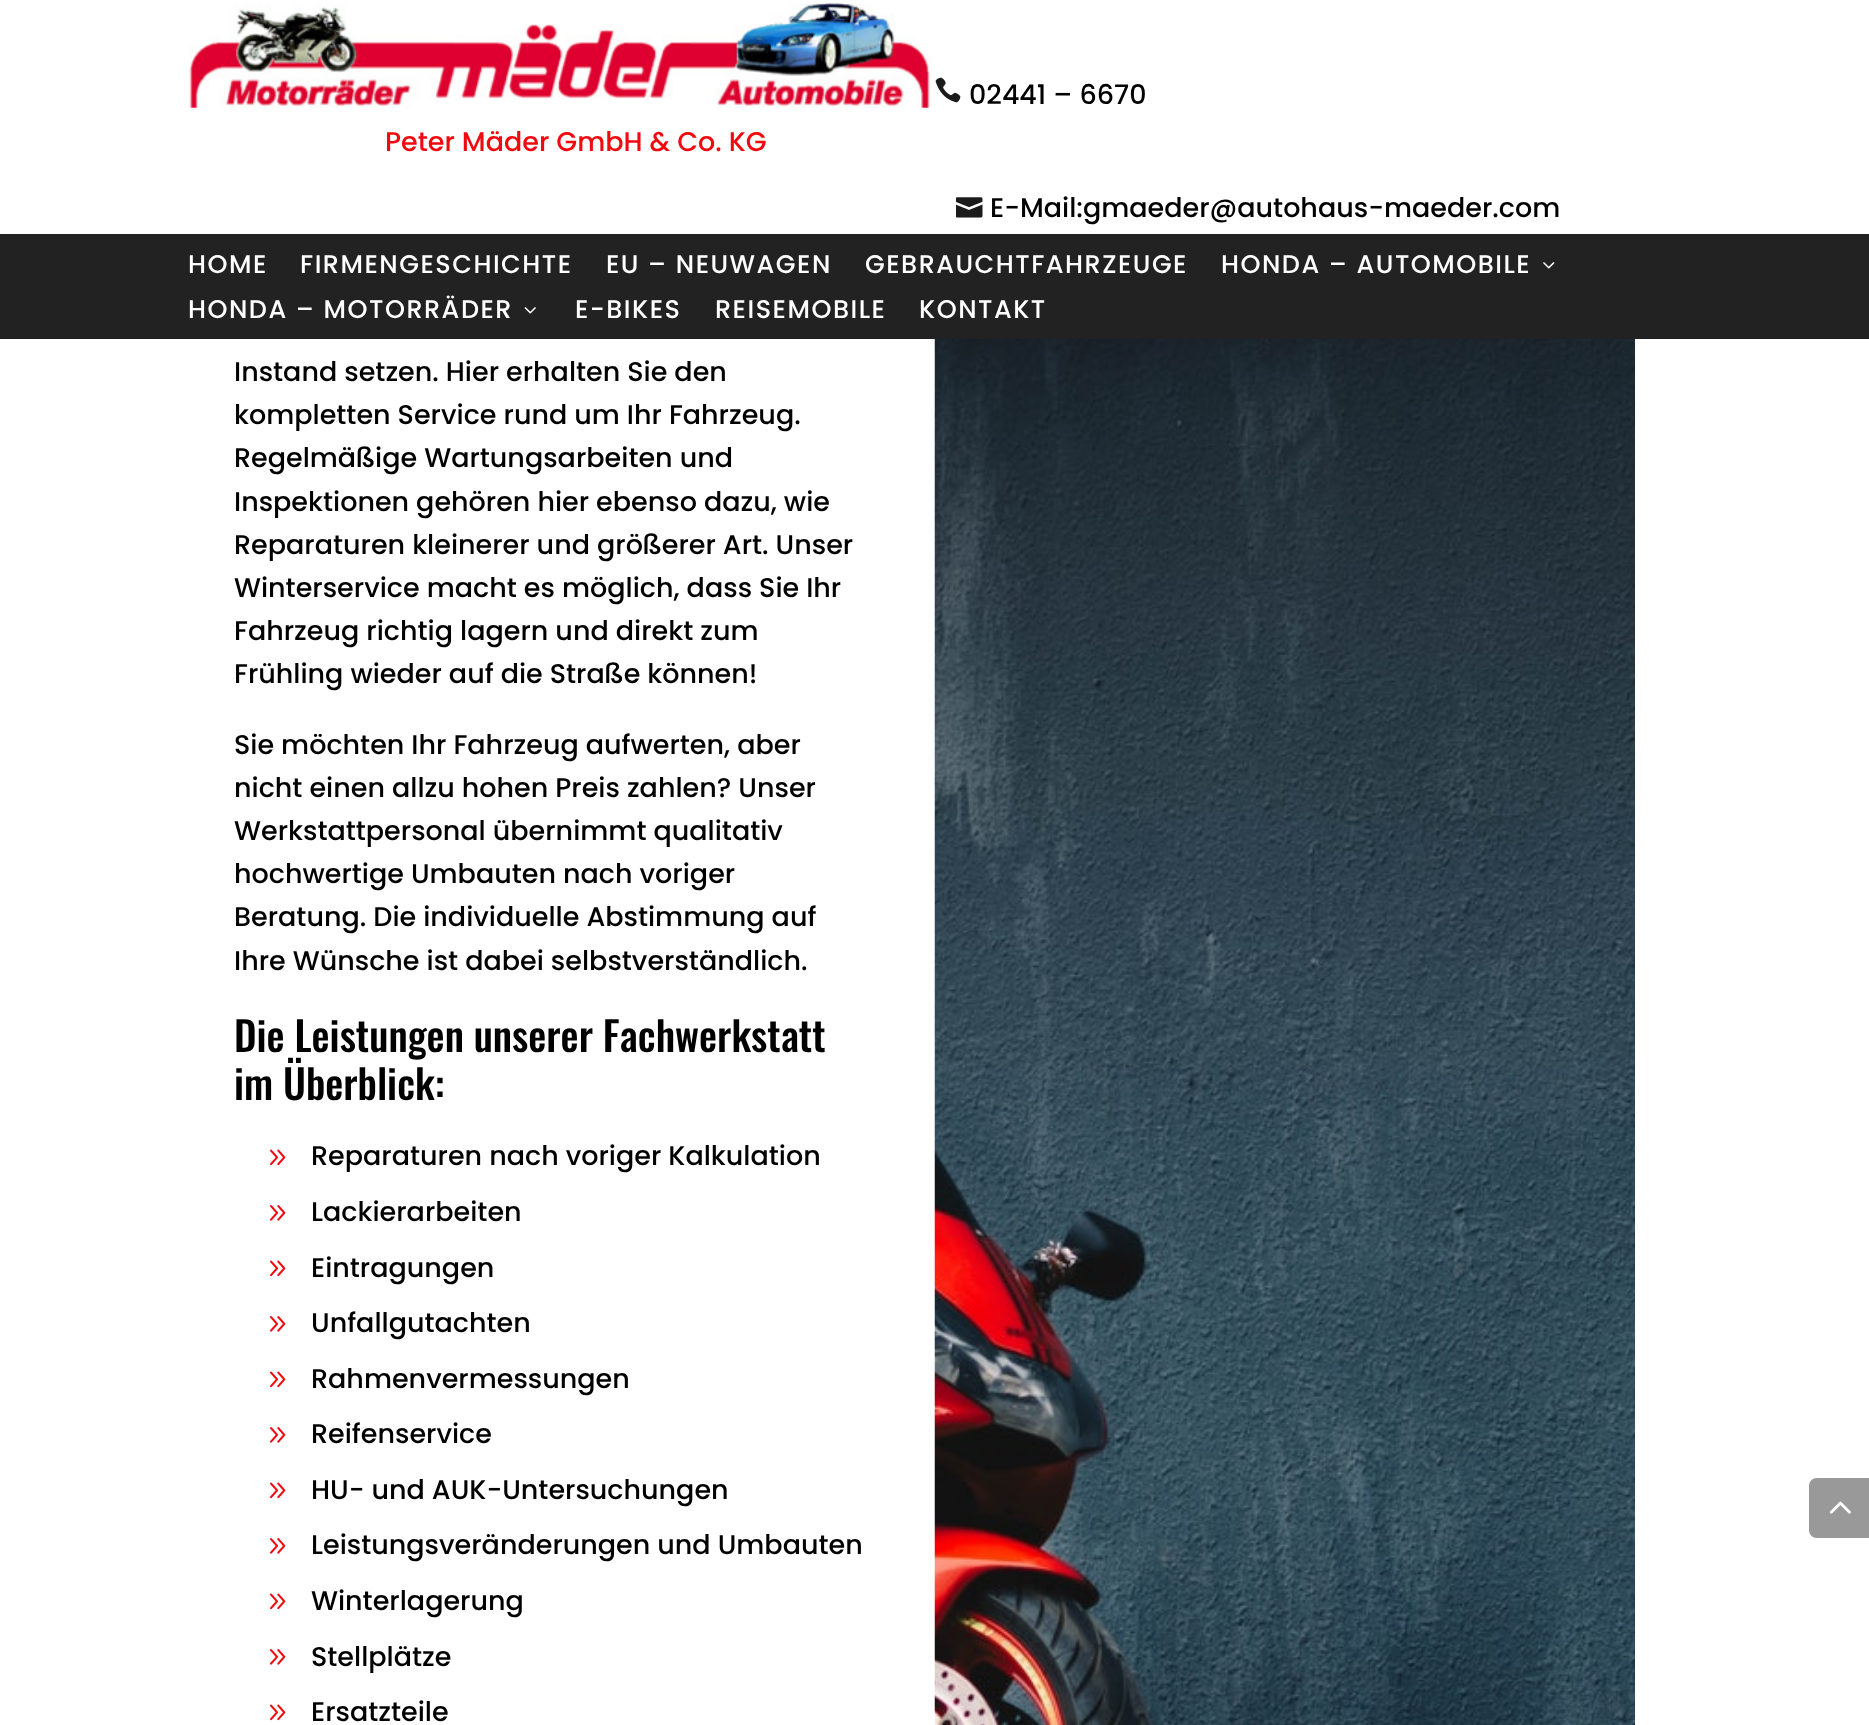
<svg xmlns="http://www.w3.org/2000/svg" width="1869" height="1725">
	<rect width="100%" height="100%" fill="#FFFFFF" />
	<image x="189" y="3" width="745" height="105" href="assets/img1.png" />
	<text x="385" y="151" font-family="Poppins" font-size="27" font-weight="500" fill="#F3080E">Peter Mäder GmbH &amp; Co. KG</text>
	<image x="935" y="77" width="26" height="26" href="assets/img2.png" />
	<text x="969" y="104" font-family="Poppins" font-size="27" font-weight="500" fill="#000000">02441 – 6670</text>
	<image x="956" y="197" width="27" height="21" href="assets/img3.png" />
	<text x="990" y="217" font-family="Poppins" font-size="27" font-weight="500" fill="#000000">E-Mail:gmaeder@autohaus-maeder.com</text>
	<rect x="0" y="234" width="1869" height="105" fill="#222222" />
	<g font-family="Poppins" font-size="25.5" font-weight="500" letter-spacing="1.5" fill="#FFFFFF">
		<text x="188" y="273">HOME</text>
		<text x="300" y="273">FIRMENGESCHICHTE</text>
		<text x="606" y="273">EU – NEUWAGEN</text>
		<text x="865" y="273">GEBRAUCHTFAHRZEUGE</text>
		<text x="1221" y="273">HONDA – AUTOMOBILE</text>
	</g>
	<image x="1543" y="262" width="12" height="7" href="assets/img4.png" />
	<text x="188" y="318" font-family="Poppins" font-size="25.5" font-weight="500" letter-spacing="1.5" fill="#FFFFFF">HONDA – MOTORRÄDER</text>
	<image x="524" y="307" width="12" height="7" href="assets/img5.png" />
	<g font-family="Poppins" font-size="25.5" font-weight="500" letter-spacing="1.5" fill="#FFFFFF">
		<text x="575" y="318">E-BIKES</text>
		<text x="715" y="318">REISEMOBILE</text>
		<text x="919" y="318">KONTAKT</text>
	</g>
	<g font-family="Poppins" font-size="27" font-weight="500" fill="#000000">
		<text x="234" y="381">Instand setzen. Hier erhalten Sie den</text>
		<text x="234" y="424">kompletten Service rund um Ihr Fahrzeug.</text>
		<text x="234" y="467">Regelmäßige Wartungsarbeiten und</text>
		<text x="234" y="511">Inspektionen gehören hier ebenso dazu, wie</text>
		<text x="234" y="554">Reparaturen kleinerer und größerer Art. Unser</text>
		<text x="234" y="597">Winterservice macht es möglich, dass Sie Ihr</text>
		<text x="234" y="640">Fahrzeug richtig lagern und direkt zum</text>
		<text x="234" y="683">Frühling wieder auf die Straße können!</text>
		<text x="234" y="754">Sie möchten Ihr Fahrzeug aufwerten, aber</text>
		<text x="234" y="797">nicht einen allzu hohen Preis zahlen? Unser</text>
		<text x="234" y="840">Werkstattpersonal übernimmt qualitativ</text>
		<text x="234" y="883">hochwertige Umbauten nach voriger</text>
		<text x="234" y="926">Beratung. Die individuelle Abstimmung auf</text>
		<text x="234" y="970">Ihre Wünsche ist dabei selbstverständlich.</text>
	</g>
	<g font-family="Oswald" font-size="40.5" font-weight="500" fill="#000000">
		<text x="234" y="1052">Die Leistungen unserer Fachwerkstatt</text>
		<text x="234" y="1100">im Überblick:</text>
	</g>
	<image x="270" y="1149" width="16" height="17" href="assets/img6.png" />
	<text x="311" y="1165" font-family="Poppins" font-size="27" font-weight="500" fill="#000000">Reparaturen nach voriger Kalkulation</text>
	<image x="270" y="1205" width="16" height="16" href="assets/img7.png" />
	<text x="311" y="1221" font-family="Poppins" font-size="27" font-weight="500" fill="#000000">Lackierarbeiten</text>
	<image x="270" y="1260" width="16" height="17" href="assets/img6.png" />
	<text x="311" y="1277" font-family="Poppins" font-size="27" font-weight="500" fill="#000000">Eintragungen</text>
	<image x="270" y="1316" width="16" height="16" href="assets/img7.png" />
	<text x="311" y="1332" font-family="Poppins" font-size="27" font-weight="500" fill="#000000">Unfallgutachten</text>
	<image x="270" y="1371" width="16" height="17" href="assets/img6.png" />
	<text x="311" y="1388" font-family="Poppins" font-size="27" font-weight="500" fill="#000000">Rahmenvermessungen</text>
	<image x="270" y="1427" width="16" height="16" href="assets/img7.png" />
	<text x="311" y="1443" font-family="Poppins" font-size="27" font-weight="500" fill="#000000">Reifenservice</text>
	<image x="270" y="1482" width="16" height="17" href="assets/img6.png" />
	<text x="311" y="1499" font-family="Poppins" font-size="27" font-weight="500" fill="#000000">HU- und AUK-Untersuchungen</text>
	<image x="270" y="1538" width="16" height="16" href="assets/img7.png" />
	<text x="311" y="1554" font-family="Poppins" font-size="27" font-weight="500" fill="#000000">Leistungsveränderungen und Umbauten</text>
	<image x="270" y="1593" width="16" height="17" href="assets/img6.png" />
	<text x="311" y="1610" font-family="Poppins" font-size="27" font-weight="500" fill="#000000">Winterlagerung</text>
	<image x="270" y="1649" width="16" height="16" href="assets/img7.png" />
	<text x="311" y="1666" font-family="Poppins" font-size="27" font-weight="500" fill="#000000">Stellplätze</text>
	<image x="270" y="1704" width="16" height="17" href="assets/img6.png" />
	<text x="311" y="1721" font-family="Poppins" font-size="27" font-weight="500" fill="#000000">Ersatzteile</text>
	<image x="934" y="339" width="701" height="1386" href="assets/img8.png" />
	<path d="M1817 1478H1869V1538H1817C1812.5 1538 1809 1534.5 1809 1530V1486C1809 1481.5 1812.5 1478 1817 1478Z" fill="#999999" />
	<image x="1829" y="1501" width="22" height="13" href="assets/img9.png" />
</svg>
